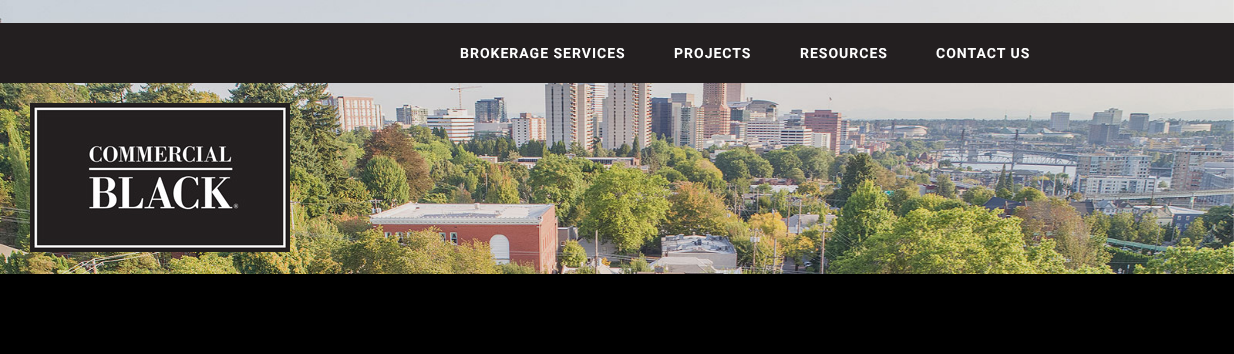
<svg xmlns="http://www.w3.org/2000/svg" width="1234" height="354">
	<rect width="100%" height="100%" fill="#FFFFFF" />
	<image x="0" y="0" width="1234" height="274" href="assets/img1.png" />
	<rect x="0" y="23" width="1234" height="60" fill="#231F20" />
	<g font-family="Roboto" font-size="14" font-weight="700" letter-spacing="1" fill="#FFFFFF">
		<text x="460" y="58">BROKERAGE SERVICES</text>
		<text x="674" y="58">PROJECTS</text>
		<text x="800" y="58">RESOURCES</text>
		<text x="936" y="58">CONTACT US</text>
	</g>
	<image x="30" y="103" width="260" height="149" href="assets/img2.png" />
	<rect x="0" y="274" width="1234" height="80" fill="#000000" />
</svg>
